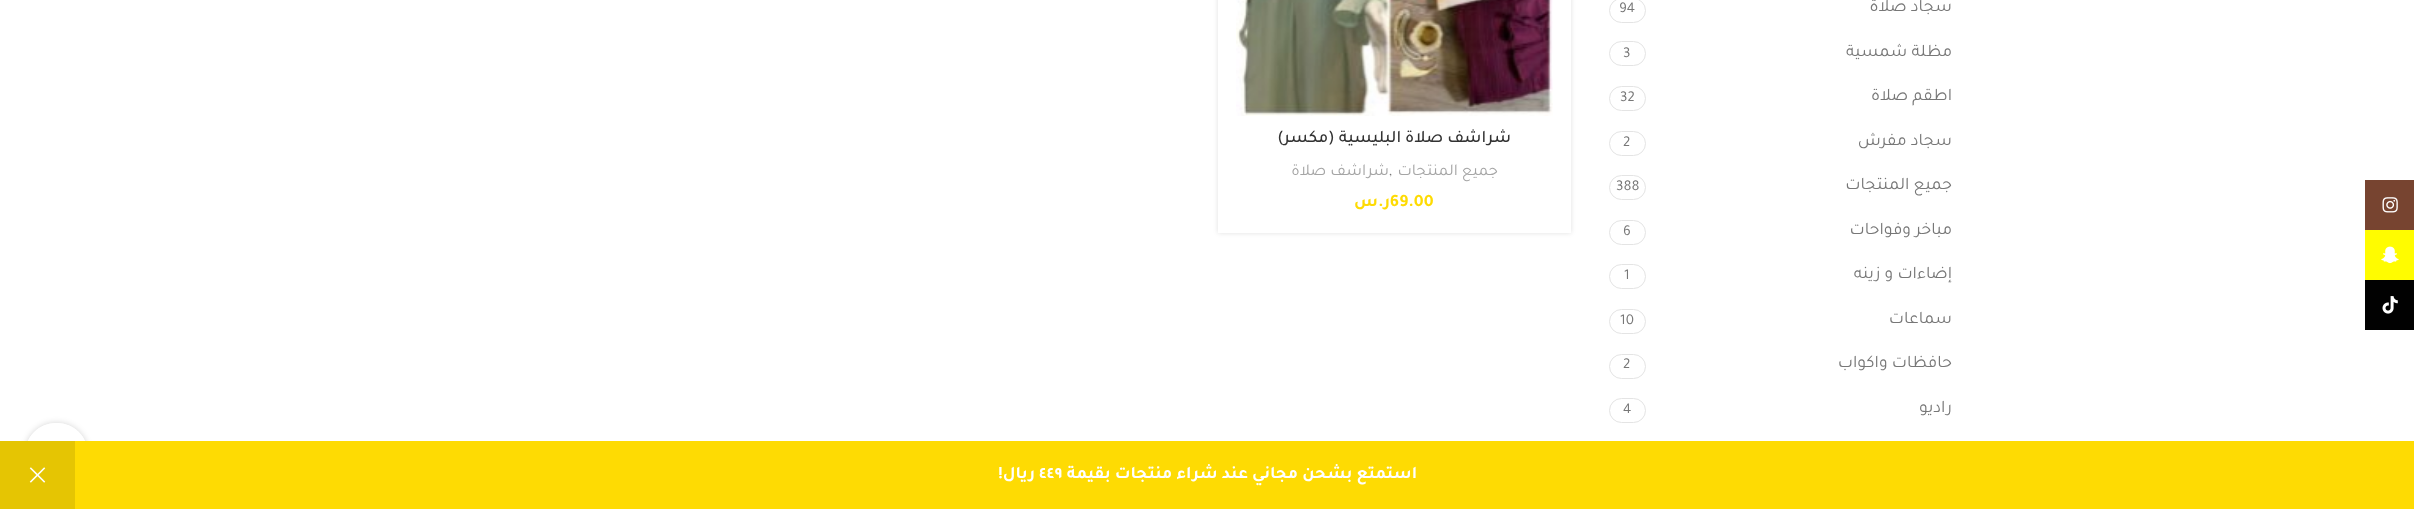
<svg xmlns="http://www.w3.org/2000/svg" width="2414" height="509">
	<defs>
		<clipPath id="clip1"><path d="M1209 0H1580V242H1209ZM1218-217H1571V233H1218Z" clip-rule="evenodd" /></clipPath>
		<clipPath id="clip2"><path d="M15 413H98V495H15ZM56 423H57C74 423 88 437 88 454C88 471 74 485 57 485H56C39 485 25 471 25 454C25 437 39 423 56 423Z" clip-rule="evenodd" /></clipPath>
	</defs>
	<rect width="100%" height="100%" fill="#FFFFFF" />
	<rect x="2365" y="180" width="49" height="50" fill="#774430" />
	<image x="2382" y="197" width="16" height="16" href="assets/img1.png" />
	<rect x="2365" y="230" width="49" height="50" fill="#FFFC00" />
	<image x="2381" y="246" width="18" height="18" href="assets/img2.png" />
	<rect x="2365" y="280" width="49" height="50" fill="#010101" />
	<image x="2382" y="296" width="16" height="18" href="assets/img3.png" />
	<text x="1952" y="11" font-family="Tajawal" font-size="17.5" direction="rtl" fill="#777777">سجاد صلاة</text>
	<rect x="1609.5" y="-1.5" width="36" height="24" rx="12" fill="none" stroke="#E4E4E4" />
	<text x="1619" y="12" font-family="Tajawal" font-size="15" fill="#777777">94</text>
	<text x="1952" y="56" font-family="Tajawal" font-size="17.5" direction="rtl" fill="#777777">مظلة شمسية</text>
	<rect x="1609.5" y="41.5" width="36" height="24" rx="12" fill="none" stroke="#E4E4E4" />
	<text x="1623" y="57" font-family="Tajawal" font-size="15" fill="#777777">3</text>
	<text x="1952" y="100" font-family="Tajawal" font-size="17.5" direction="rtl" fill="#777777">اطقم صلاة</text>
	<rect x="1609.5" y="86.5" width="36" height="24" rx="12" fill="none" stroke="#E4E4E4" />
	<text x="1620" y="101" font-family="Tajawal" font-size="15" fill="#777777">32</text>
	<text x="1952" y="145" font-family="Tajawal" font-size="17.5" direction="rtl" fill="#777777">سجاد مفرش</text>
	<rect x="1609.5" y="131.5" width="36" height="24" rx="12" fill="none" stroke="#E4E4E4" />
	<text x="1623" y="146" font-family="Tajawal" font-size="15" fill="#777777">2</text>
	<text x="1952" y="189" font-family="Tajawal" font-size="17.5" direction="rtl" fill="#777777">جميع المنتجات</text>
	<rect x="1609.5" y="175.5" width="36" height="24" rx="12" fill="none" stroke="#E4E4E4" />
	<text x="1616" y="190" font-family="Tajawal" font-size="15" fill="#777777">388</text>
	<text x="1952" y="234" font-family="Tajawal" font-size="17.5" direction="rtl" fill="#777777">مباخر وفواحات</text>
	<rect x="1609.5" y="220.5" width="36" height="24" rx="12" fill="none" stroke="#E4E4E4" />
	<text x="1623" y="235" font-family="Tajawal" font-size="15" fill="#777777">6</text>
	<text x="1952" y="278" font-family="Tajawal" font-size="17.5" direction="rtl" fill="#777777">إضاءات و زينه</text>
	<rect x="1609.5" y="264.5" width="36" height="24" rx="12" fill="none" stroke="#E4E4E4" />
	<text x="1624" y="279" font-family="Tajawal" font-size="15" fill="#777777">1</text>
	<text x="1952" y="323" font-family="Tajawal" font-size="17.5" direction="rtl" fill="#777777">سماعات</text>
	<rect x="1609.5" y="309.5" width="36" height="24" rx="12" fill="none" stroke="#E4E4E4" />
	<text x="1620" y="324" font-family="Tajawal" font-size="15" fill="#777777">10</text>
	<text x="1952" y="367" font-family="Tajawal" font-size="17.5" direction="rtl" fill="#777777">حافظات واكواب</text>
	<rect x="1609.5" y="354.5" width="36" height="24" rx="12" fill="none" stroke="#E4E4E4" />
	<text x="1623" y="368" font-family="Tajawal" font-size="15" fill="#777777">2</text>
	<text x="1952" y="412" font-family="Tajawal" font-size="17.5" direction="rtl" fill="#777777">راديو</text>
	<rect x="1609.5" y="398.5" width="36" height="24" rx="12" fill="none" stroke="#E4E4E4" />
	<text x="1623" y="413" font-family="Tajawal" font-size="15" fill="#777777">4</text>
	<g clip-path="url(#clip1)">
		<rect x="1218" y="-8" width="353" height="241" fill="#000000" fill-opacity="0.12" filter="blur(2.5px)" />
	</g>
	<image x="1236" y="0" width="317" height="116" href="assets/img4.png" />
	<text x="1511" y="142" font-family="Tajawal" font-size="17.5" font-weight="500" direction="rtl" fill="#333333">شراشف صلاة البليسية (مكسر)</text>
	<text x="1498" y="175" font-family="Tajawal" font-size="16.5" direction="rtl" fill="#A5A5A5">جميع المنتجات</text>
	<text x="1389" y="175" font-family="Tajawal" font-size="16.5" fill="#777777">,</text>
	<text x="1389" y="175" font-family="Tajawal" font-size="16.5" direction="rtl" fill="#A5A5A5">شراشف صلاة</text>
	<text x="1390" y="206" font-family="Tajawal" font-size="17.5" font-weight="700" fill="#FEDB03">69.00</text>
	<text x="1390" y="206" font-family="Tajawal" font-size="17.5" font-weight="700" direction="rtl" fill="#FEDB03">ر.س</text>
	<g clip-path="url(#clip2)">
		<rect x="25" y="423" width="63" height="62" rx="31" fill="#000000" fill-opacity="0.17" filter="blur(3px)" />
	</g>
	<rect x="25" y="423" width="63" height="62" rx="31" fill="#FFFFFF" fill-opacity="0.9" />
	<rect x="75" y="441" width="2339" height="68" fill="#FEDB03" />
	<text x="1417" y="478" font-family="Tajawal" font-size="17.5" font-weight="700" direction="rtl" fill="#FFFFFF">استمتع بشحن مجاني عند شراء منتجات بقيمة</text>
	<text x="1039" y="478" font-family="Tajawal" font-size="17.5" font-weight="700" fill="#FFFFFF">٤٤٩</text>
	<text x="1035" y="478" font-family="Tajawal" font-size="17.5" font-weight="700" direction="rtl" fill="#FFFFFF">ريال!</text>
	<rect x="0" y="441" width="75" height="68" fill="#E5C503" />
	<image x="29" y="467" width="17" height="16" href="assets/img5.png" />
</svg>
